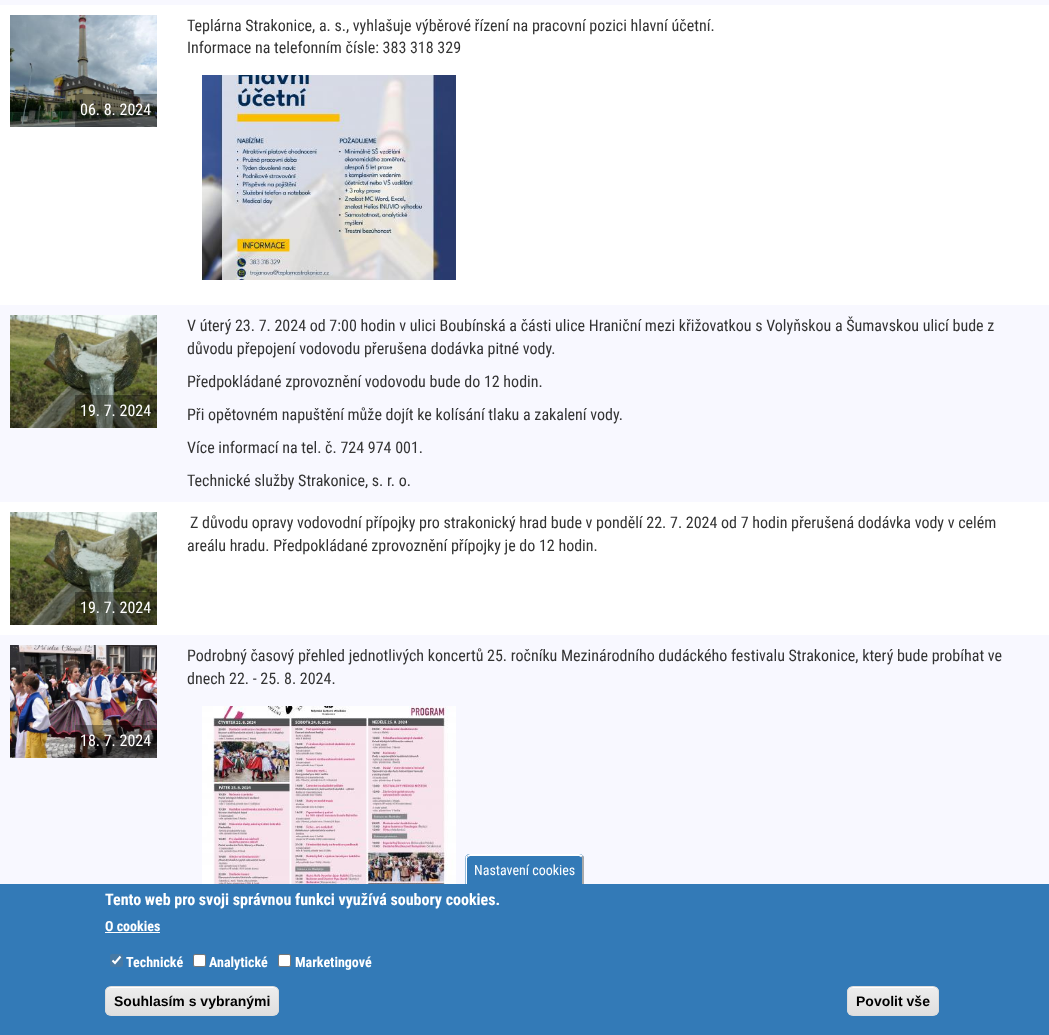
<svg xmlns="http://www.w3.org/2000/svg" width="1049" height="1035">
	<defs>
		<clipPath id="clip1"><rect x="105" y="986" width="174" height="30" rx="6" /></clipPath>
		<linearGradient id="g1" gradientUnits="userSpaceOnUse" x1="192" y1="987" x2="192" y2="1015"><stop offset="0.05" stop-color="#EDEDED" /><stop offset="1" stop-color="#DFDFDF" /></linearGradient>
		<clipPath id="clip2"><rect x="847" y="986" width="92" height="30" rx="6" /></clipPath>
		<linearGradient id="g2" gradientUnits="userSpaceOnUse" x1="893" y1="987" x2="893" y2="1015"><stop offset="0.05" stop-color="#EDEDED" /><stop offset="1" stop-color="#DFDFDF" /></linearGradient>
	</defs>
	<rect width="100%" height="100%" fill="#FFFFFF" />
	<rect x="0" y="0" width="1049" height="5" fill="#F8F8FF" />
	<g font-family="Roboto Condensed" font-size="16" fill="#333333">
		<text x="187" y="31">Teplárna Strakonice, a. s., vyhlašuje výběrové řízení na pracovní pozici hlavní účetní.</text>
		<text x="187" y="53">Informace na telefonním čísle: 383 318 329</text>
	</g>
	<image x="202" y="75" width="254" height="205" href="assets/img1.png" />
	<image x="10" y="15" width="147" height="112" href="assets/img2.png" />
	<rect x="75" y="94" width="82" height="33" fill="#000000" fill-opacity="0.33" />
	<text x="80" y="115" font-family="Roboto Condensed" font-size="16" fill="#FFFFFF">06. 8. 2024</text>
	<rect x="0" y="305" width="1049" height="197" fill="#F8F8FF" />
	<image x="10" y="315" width="147" height="113" href="assets/img3.png" />
	<rect x="75" y="395" width="82" height="33" fill="#000000" fill-opacity="0.33" />
	<text x="80" y="416" font-family="Roboto Condensed" font-size="16" fill="#FFFFFF">19. 7. 2024</text>
	<g font-family="Roboto Condensed" font-size="16" fill="#333333">
		<text x="187" y="331">V úterý 23. 7. 2024 od 7:00 hodin v ulici Boubínská a části ulice Hraniční mezi křižovatkou s Volyňskou a Šumavskou ulicí bude z</text>
		<text x="187" y="354">důvodu přepojení vodovodu přerušena dodávka pitné vody.</text>
		<text x="187" y="387">Předpokládané zprovoznění vodovodu bude do 12 hodin.</text>
		<text x="187" y="420">Při opětovném napuštění může dojít ke kolísání tlaku a zakalení vody.</text>
		<text x="187" y="453">Více informací na tel. č. 724 974 001.</text>
		<text x="187" y="486">Technické služby Strakonice, s. r. o.</text>
		<text x="190" y="528">Z důvodu opravy vodovodní přípojky pro strakonický hrad bude v pondělí 22. 7. 2024 od 7 hodin přerušená dodávka vody v celém</text>
		<text x="187" y="551">areálu hradu. Předpokládané zprovoznění přípojky je do 12 hodin.</text>
	</g>
	<image x="10" y="512" width="147" height="113" href="assets/img4.png" />
	<rect x="75" y="592" width="82" height="33" fill="#000000" fill-opacity="0.33" />
	<text x="80" y="613" font-family="Roboto Condensed" font-size="16" fill="#FFFFFF">19. 7. 2024</text>
	<rect x="0" y="635" width="1049" height="249" fill="#F8F8FF" />
	<g font-family="Roboto Condensed" font-size="16" fill="#333333">
		<text x="187" y="661">Podrobný časový přehled jednotlivých koncertů 25. ročníku Mezinárodního dudáckého festivalu Strakonice, který bude probíhat ve</text>
		<text x="187" y="684">dnech 22. - 25. 8. 2024.</text>
	</g>
	<image x="202" y="706" width="254" height="178" href="assets/img5.png" />
	<image x="10" y="645" width="147" height="113" href="assets/img6.png" />
	<rect x="75" y="725" width="82" height="33" fill="#000000" fill-opacity="0.33" />
	<text x="80" y="746" font-family="Roboto Condensed" font-size="16" fill="#FFFFFF">18. 7. 2024</text>
	<rect x="0" y="884" width="1049" height="151" fill="#337AB7" />
	<path d="M470 854H579C582 854 584 856 584 859V884H465V859C465 856 467 854 470 854Z" fill="#337AB7" />
	<path d="M470 854L467 855L468 857L470 856H579L581 857L583 856C582 855 581 854 579 854Z" fill="#FFFFFF" />
	<path d="M582 884H584V859C584 857.5 583.5 856.5 583 855.5L581.5 857C582 857.5 582 858 582 859Z" fill="#AAAAAA" />
	<path d="M465.5 884V857L466.5 855.5L468 857C467.5 857.5 467 858 467 859V884Z" fill="#FFFFFF" />
	<text x="474" y="875" font-family="Roboto Condensed" font-size="14" fill="#FFFFFF">Nastavení cookies</text>
	<text x="105" y="905" font-family="Roboto Condensed" font-size="16" font-weight="700" fill="#FFFFFF">Tento web pro svoji správnou funkci využívá soubory cookies.</text>
	<text x="105" y="931" font-family="Roboto Condensed" font-size="14" font-weight="700" fill="#FFFFFF">O cookies</text>
	<rect x="105" y="932" width="55" height="1" fill="#FFFFFF" />
	<rect x="110" y="954" width="13" height="13" rx="2" fill="#4779A4" />
	<path d="M112.5 960.5L115 963L120.5 956.5" fill="none" stroke="#FFFFFF" stroke-width="2.1" />
	<text x="126" y="967" font-family="Roboto Condensed" font-size="14" font-weight="700" fill="#FFFFFF">Technické</text>
	<rect x="193.5" y="954.5" width="12" height="12" rx="1.5" fill="#FFFFFF" stroke="#767676" />
	<text x="209" y="967" font-family="Roboto Condensed" font-size="14" font-weight="700" fill="#FFFFFF">Analytické</text>
	<rect x="278.5" y="954.5" width="12" height="12" rx="1.5" fill="#FFFFFF" stroke="#767676" />
	<text x="295" y="967" font-family="Roboto Condensed" font-size="14" font-weight="700" fill="#FFFFFF">Marketingové</text>
	<g clip-path="url(#clip1)">
		<rect x="105" y="987" width="174" height="28" fill="url(#g1)" />
	</g>
	<path d="M111 988H273C276 988 278 990 278 993C278 990 276 987 273 987H110C107 988 106 990 106 993C106 990 108 988 111 988Z" fill="#FFFFFF" />
	<rect x="105.5" y="986.5" width="173" height="29" rx="5.5" fill="none" stroke="#DCDCDC" />
	<text x="114" y="1006" font-family="Liberation Sans" font-size="14" font-weight="700" fill="#000000">Souhlasím s vybranými</text>
	<g clip-path="url(#clip2)">
		<rect x="847" y="987" width="92" height="28" fill="url(#g2)" />
	</g>
	<path d="M853 988H933C936 988 938 990 938 993C938 984 925 987 920 987H866C861 987 848 984 848 993C848 990 850 988 853 988Z" fill="#FFFFFF" />
	<rect x="847.5" y="986.5" width="91" height="29" rx="5.5" fill="none" stroke="#DCDCDC" />
	<text x="856" y="1006" font-family="Liberation Sans" font-size="14" font-weight="700" fill="#000000">Povolit vše</text>
</svg>
